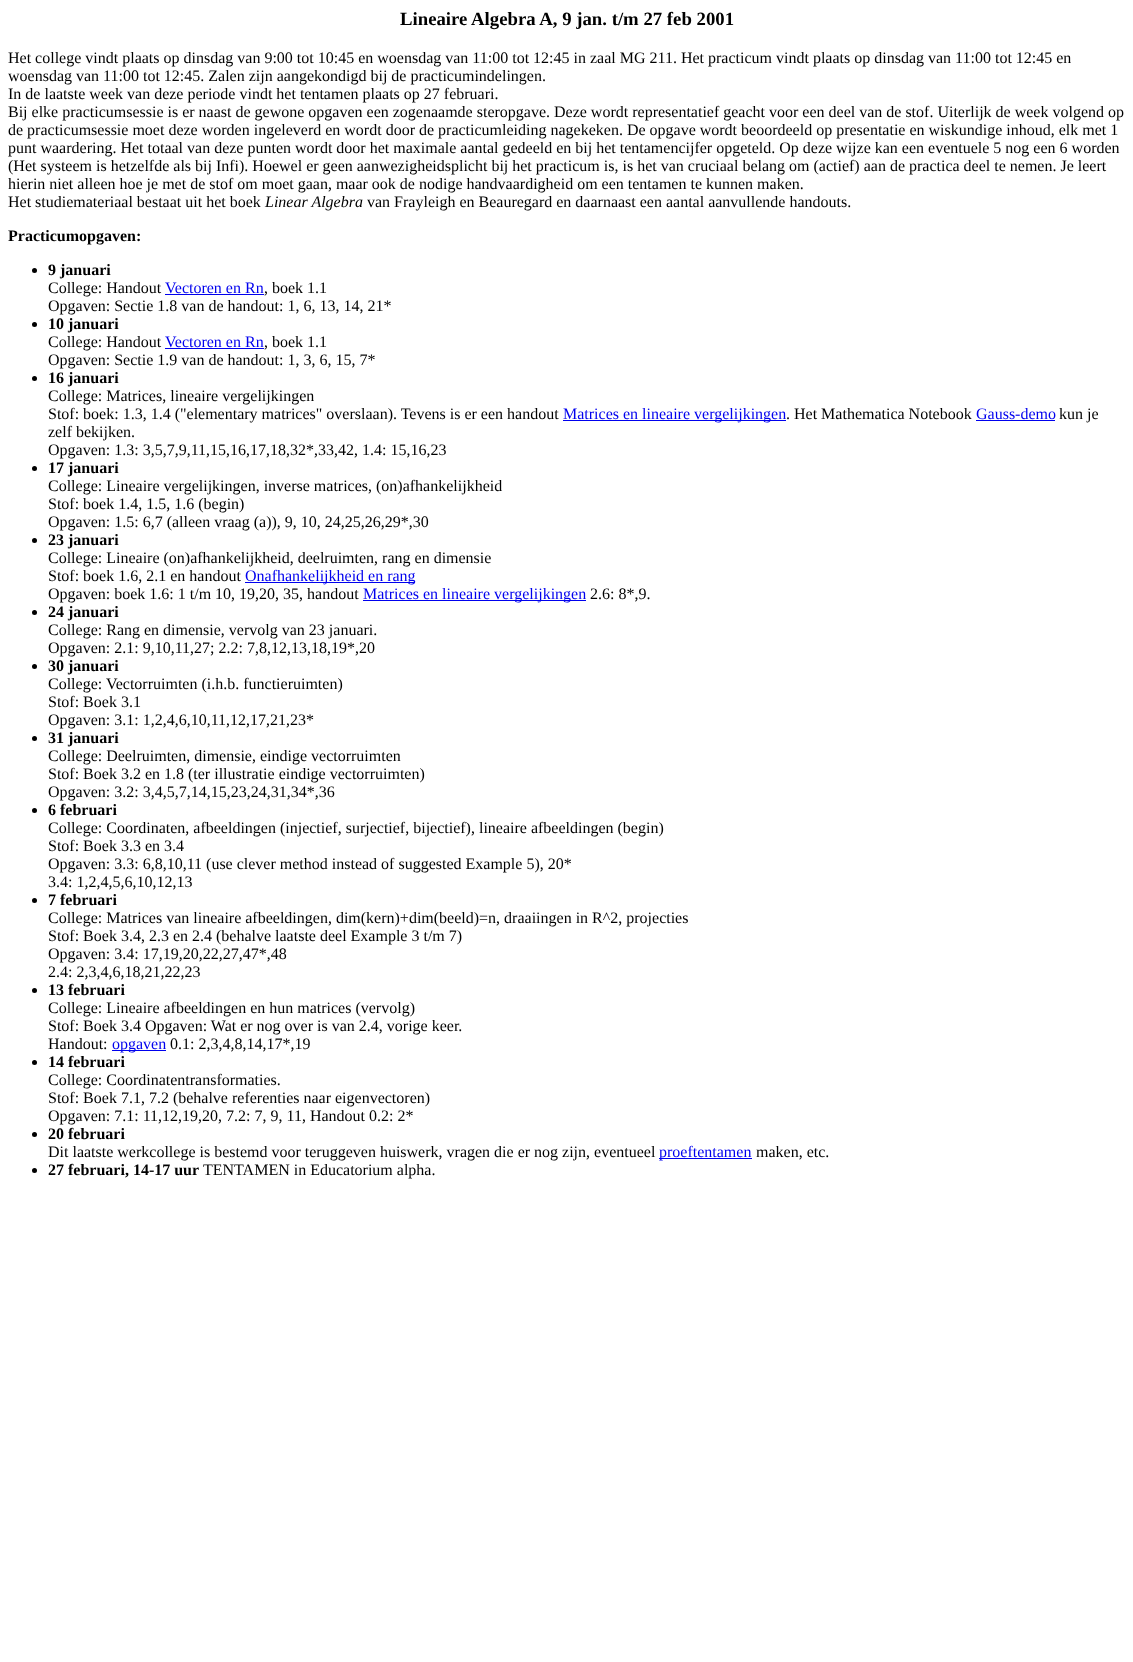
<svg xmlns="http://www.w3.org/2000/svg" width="1133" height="1662">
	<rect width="100%" height="100%" fill="#FFFFFF" />
	<text x="400" y="25" font-family="Liberation Serif" font-size="18.75" font-weight="700" fill="#000000">Lineaire Algebra A, 9 jan. t/m 27 feb 2001</text>
	<g font-family="Liberation Serif" font-size="16" fill="#000000">
		<text x="8" y="63">Het college vindt plaats op dinsdag van 9:00 tot 10:45 en woensdag van 11:00 tot 12:45 in zaal MG 211. Het practicum vindt plaats op dinsdag van 11:00 tot 12:45 en</text>
		<text x="8" y="81">woensdag van 11:00 tot 12:45. Zalen zijn aangekondigd bij de practicumindelingen.</text>
		<text x="8" y="99">In de laatste week van deze periode vindt het tentamen plaats op 27 februari.</text>
		<text x="8" y="117">Bij elke practicumsessie is er naast de gewone opgaven een zogenaamde steropgave. Deze wordt representatief geacht voor een deel van de stof. Uiterlijk de week volgend op</text>
		<text x="8" y="135">de practicumsessie moet deze worden ingeleverd en wordt door de practicumleiding nagekeken. De opgave wordt beoordeeld op presentatie en wiskundige inhoud, elk met 1</text>
		<text x="8" y="153">punt waardering. Het totaal van deze punten wordt door het maximale aantal gedeeld en bij het tentamencijfer opgeteld. Op deze wijze kan een eventuele 5 nog een 6 worden</text>
		<text x="8" y="171">(Het systeem is hetzelfde als bij Infi). Hoewel er geen aanwezigheidsplicht bij het practicum is, is het van cruciaal belang om (actief) aan de practica deel te nemen. Je leert</text>
		<text x="8" y="189">hierin niet alleen hoe je met de stof om moet gaan, maar ook de nodige handvaardigheid om een tentamen te kunnen maken.</text>
		<text x="8" y="207">Het studiemateriaal bestaat uit het boek</text>
	</g>
	<text x="265" y="207" font-family="Liberation Serif" font-size="16" font-style="italic" fill="#000000">Linear Algebra</text>
	<text x="367" y="207" font-family="Liberation Serif" font-size="16" fill="#000000">van Frayleigh en Beauregard en daarnaast een aantal aanvullende handouts.</text>
	<text x="8" y="241" font-family="Liberation Serif" font-size="16" font-weight="700" fill="#000000">Practicumopgaven:</text>
	<circle cx="34.5" cy="270.5" r="2.5" fill="#000000" />
	<text x="48" y="275" font-family="Liberation Serif" font-size="16" font-weight="700" fill="#000000">9 januari</text>
	<text x="48" y="293" font-family="Liberation Serif" font-size="16" fill="#000000">College: Handout</text>
	<text x="165" y="293" font-family="Liberation Serif" font-size="16" fill="#0000EE">Vectoren en Rn</text>
	<rect x="165" y="294" width="99" height="1" fill="#0000EE" />
	<g font-family="Liberation Serif" font-size="16" fill="#000000">
		<text x="264" y="293">, boek 1.1</text>
		<text x="48" y="311">Opgaven: Sectie 1.8 van de handout: 1, 6, 13, 14, 21*</text>
	</g>
	<circle cx="34.5" cy="324.5" r="2.5" fill="#000000" />
	<text x="48" y="329" font-family="Liberation Serif" font-size="16" font-weight="700" fill="#000000">10 januari</text>
	<text x="48" y="347" font-family="Liberation Serif" font-size="16" fill="#000000">College: Handout</text>
	<text x="165" y="347" font-family="Liberation Serif" font-size="16" fill="#0000EE">Vectoren en Rn</text>
	<rect x="165" y="348" width="99" height="1" fill="#0000EE" />
	<g font-family="Liberation Serif" font-size="16" fill="#000000">
		<text x="264" y="347">, boek 1.1</text>
		<text x="48" y="365">Opgaven: Sectie 1.9 van de handout: 1, 3, 6, 15, 7*</text>
	</g>
	<circle cx="34.5" cy="378.5" r="2.5" fill="#000000" />
	<text x="48" y="383" font-family="Liberation Serif" font-size="16" font-weight="700" fill="#000000">16 januari</text>
	<g font-family="Liberation Serif" font-size="16" fill="#000000">
		<text x="48" y="401">College: Matrices, lineaire vergelijkingen</text>
		<text x="48" y="419">Stof: boek: 1.3, 1.4 ("elementary matrices" overslaan). Tevens is er een handout</text>
	</g>
	<rect x="563" y="420" width="223" height="1" fill="#0000EE" />
	<text x="563" y="419" font-family="Liberation Serif" font-size="16" fill="#0000EE">Matrices en lineaire vergelijkingen</text>
	<text x="786" y="419" font-family="Liberation Serif" font-size="16" fill="#000000">. Het Mathematica Notebook</text>
	<text x="976" y="419" font-family="Liberation Serif" font-size="16" fill="#0000EE">Gauss-demo</text>
	<rect x="976" y="420" width="79" height="1" fill="#0000EE" />
	<g font-family="Liberation Serif" font-size="16" fill="#000000">
		<text x="1059" y="419">kun je</text>
		<text x="48" y="437">zelf bekijken.</text>
		<text x="48" y="455">Opgaven: 1.3: 3,5,7,9,11,15,16,17,18,32*,33,42, 1.4: 15,16,23</text>
	</g>
	<circle cx="34.5" cy="468.5" r="2.5" fill="#000000" />
	<text x="48" y="473" font-family="Liberation Serif" font-size="16" font-weight="700" fill="#000000">17 januari</text>
	<g font-family="Liberation Serif" font-size="16" fill="#000000">
		<text x="48" y="491">College: Lineaire vergelijkingen, inverse matrices, (on)afhankelijkheid</text>
		<text x="48" y="509">Stof: boek 1.4, 1.5, 1.6 (begin)</text>
		<text x="48" y="527">Opgaven: 1.5: 6,7 (alleen vraag (a)), 9, 10, 24,25,26,29*,30</text>
	</g>
	<circle cx="34.5" cy="540.5" r="2.5" fill="#000000" />
	<text x="48" y="545" font-family="Liberation Serif" font-size="16" font-weight="700" fill="#000000">23 januari</text>
	<g font-family="Liberation Serif" font-size="16" fill="#000000">
		<text x="48" y="563">College: Lineaire (on)afhankelijkheid, deelruimten, rang en dimensie</text>
		<text x="48" y="581">Stof: boek 1.6, 2.1 en handout</text>
	</g>
	<rect x="245" y="582" width="170" height="1" fill="#0000EE" />
	<text x="245" y="581" font-family="Liberation Serif" font-size="16" fill="#0000EE">Onafhankelijkheid en rang</text>
	<text x="48" y="599" font-family="Liberation Serif" font-size="16" fill="#000000">Opgaven: boek 1.6: 1 t/m 10, 19,20, 35, handout</text>
	<rect x="363" y="600" width="223" height="1" fill="#0000EE" />
	<text x="363" y="599" font-family="Liberation Serif" font-size="16" fill="#0000EE">Matrices en lineaire vergelijkingen</text>
	<text x="590" y="599" font-family="Liberation Serif" font-size="16" fill="#000000">2.6: 8*,9.</text>
	<circle cx="34.5" cy="612.5" r="2.5" fill="#000000" />
	<text x="48" y="617" font-family="Liberation Serif" font-size="16" font-weight="700" fill="#000000">24 januari</text>
	<g font-family="Liberation Serif" font-size="16" fill="#000000">
		<text x="48" y="635">College: Rang en dimensie, vervolg van 23 januari.</text>
		<text x="48" y="653">Opgaven: 2.1: 9,10,11,27; 2.2: 7,8,12,13,18,19*,20</text>
	</g>
	<circle cx="34.5" cy="666.5" r="2.5" fill="#000000" />
	<text x="48" y="671" font-family="Liberation Serif" font-size="16" font-weight="700" fill="#000000">30 januari</text>
	<g font-family="Liberation Serif" font-size="16" fill="#000000">
		<text x="48" y="689">College: Vectorruimten (i.h.b. functieruimten)</text>
		<text x="48" y="707">Stof: Boek 3.1</text>
		<text x="48" y="725">Opgaven: 3.1: 1,2,4,6,10,11,12,17,21,23*</text>
	</g>
	<circle cx="34.5" cy="738.5" r="2.5" fill="#000000" />
	<text x="48" y="743" font-family="Liberation Serif" font-size="16" font-weight="700" fill="#000000">31 januari</text>
	<g font-family="Liberation Serif" font-size="16" fill="#000000">
		<text x="48" y="761">College: Deelruimten, dimensie, eindige vectorruimten</text>
		<text x="48" y="779">Stof: Boek 3.2 en 1.8 (ter illustratie eindige vectorruimten)</text>
		<text x="48" y="797">Opgaven: 3.2: 3,4,5,7,14,15,23,24,31,34*,36</text>
	</g>
	<circle cx="34.5" cy="810.5" r="2.5" fill="#000000" />
	<text x="48" y="815" font-family="Liberation Serif" font-size="16" font-weight="700" fill="#000000">6 februari</text>
	<g font-family="Liberation Serif" font-size="16" fill="#000000">
		<text x="48" y="833">College: Coordinaten, afbeeldingen (injectief, surjectief, bijectief), lineaire afbeeldingen (begin)</text>
		<text x="48" y="851">Stof: Boek 3.3 en 3.4</text>
		<text x="48" y="869">Opgaven: 3.3: 6,8,10,11 (use clever method instead of suggested Example 5), 20*</text>
		<text x="48" y="887">3.4: 1,2,4,5,6,10,12,13</text>
	</g>
	<circle cx="34.5" cy="900.5" r="2.5" fill="#000000" />
	<text x="48" y="905" font-family="Liberation Serif" font-size="16" font-weight="700" fill="#000000">7 februari</text>
	<g font-family="Liberation Serif" font-size="16" fill="#000000">
		<text x="48" y="923">College: Matrices van lineaire afbeeldingen, dim(kern)+dim(beeld)=n, draaiingen in R^2, projecties</text>
		<text x="48" y="941">Stof: Boek 3.4, 2.3 en 2.4 (behalve laatste deel Example 3 t/m 7)</text>
		<text x="48" y="959">Opgaven: 3.4: 17,19,20,22,27,47*,48</text>
		<text x="48" y="977">2.4: 2,3,4,6,18,21,22,23</text>
	</g>
	<circle cx="34.5" cy="990.5" r="2.5" fill="#000000" />
	<text x="48" y="995" font-family="Liberation Serif" font-size="16" font-weight="700" fill="#000000">13 februari</text>
	<g font-family="Liberation Serif" font-size="16" fill="#000000">
		<text x="48" y="1013">College: Lineaire afbeeldingen en hun matrices (vervolg)</text>
		<text x="48" y="1031">Stof: Boek 3.4 Opgaven: Wat er nog over is van 2.4, vorige keer.</text>
		<text x="48" y="1049">Handout:</text>
	</g>
	<rect x="112" y="1050" width="54" height="1" fill="#0000EE" />
	<text x="112" y="1049" font-family="Liberation Serif" font-size="16" fill="#0000EE">opgaven</text>
	<text x="170" y="1049" font-family="Liberation Serif" font-size="16" fill="#000000">0.1: 2,3,4,8,14,17*,19</text>
	<circle cx="34.5" cy="1062.5" r="2.5" fill="#000000" />
	<text x="48" y="1067" font-family="Liberation Serif" font-size="16" font-weight="700" fill="#000000">14 februari</text>
	<g font-family="Liberation Serif" font-size="16" fill="#000000">
		<text x="48" y="1085">College: Coordinatentransformaties.</text>
		<text x="48" y="1103">Stof: Boek 7.1, 7.2 (behalve referenties naar eigenvectoren)</text>
		<text x="48" y="1121">Opgaven: 7.1: 11,12,19,20, 7.2: 7, 9, 11, Handout 0.2: 2*</text>
	</g>
	<circle cx="34.5" cy="1134.5" r="2.5" fill="#000000" />
	<text x="48" y="1139" font-family="Liberation Serif" font-size="16" font-weight="700" fill="#000000">20 februari</text>
	<text x="48" y="1157" font-family="Liberation Serif" font-size="16" fill="#000000">Dit laatste werkcollege is bestemd voor teruggeven huiswerk, vragen die er nog zijn, eventueel</text>
	<rect x="659" y="1158" width="93" height="1" fill="#0000EE" />
	<text x="659" y="1157" font-family="Liberation Serif" font-size="16" fill="#0000EE">proeftentamen</text>
	<text x="756" y="1157" font-family="Liberation Serif" font-size="16" fill="#000000">maken, etc.</text>
	<circle cx="34.5" cy="1170.5" r="2.5" fill="#000000" />
	<text x="48" y="1175" font-family="Liberation Serif" font-size="16" font-weight="700" fill="#000000">27 februari, 14-17 uur</text>
	<text x="203" y="1175" font-family="Liberation Serif" font-size="16" fill="#000000">TENTAMEN in Educatorium alpha.</text>
</svg>
